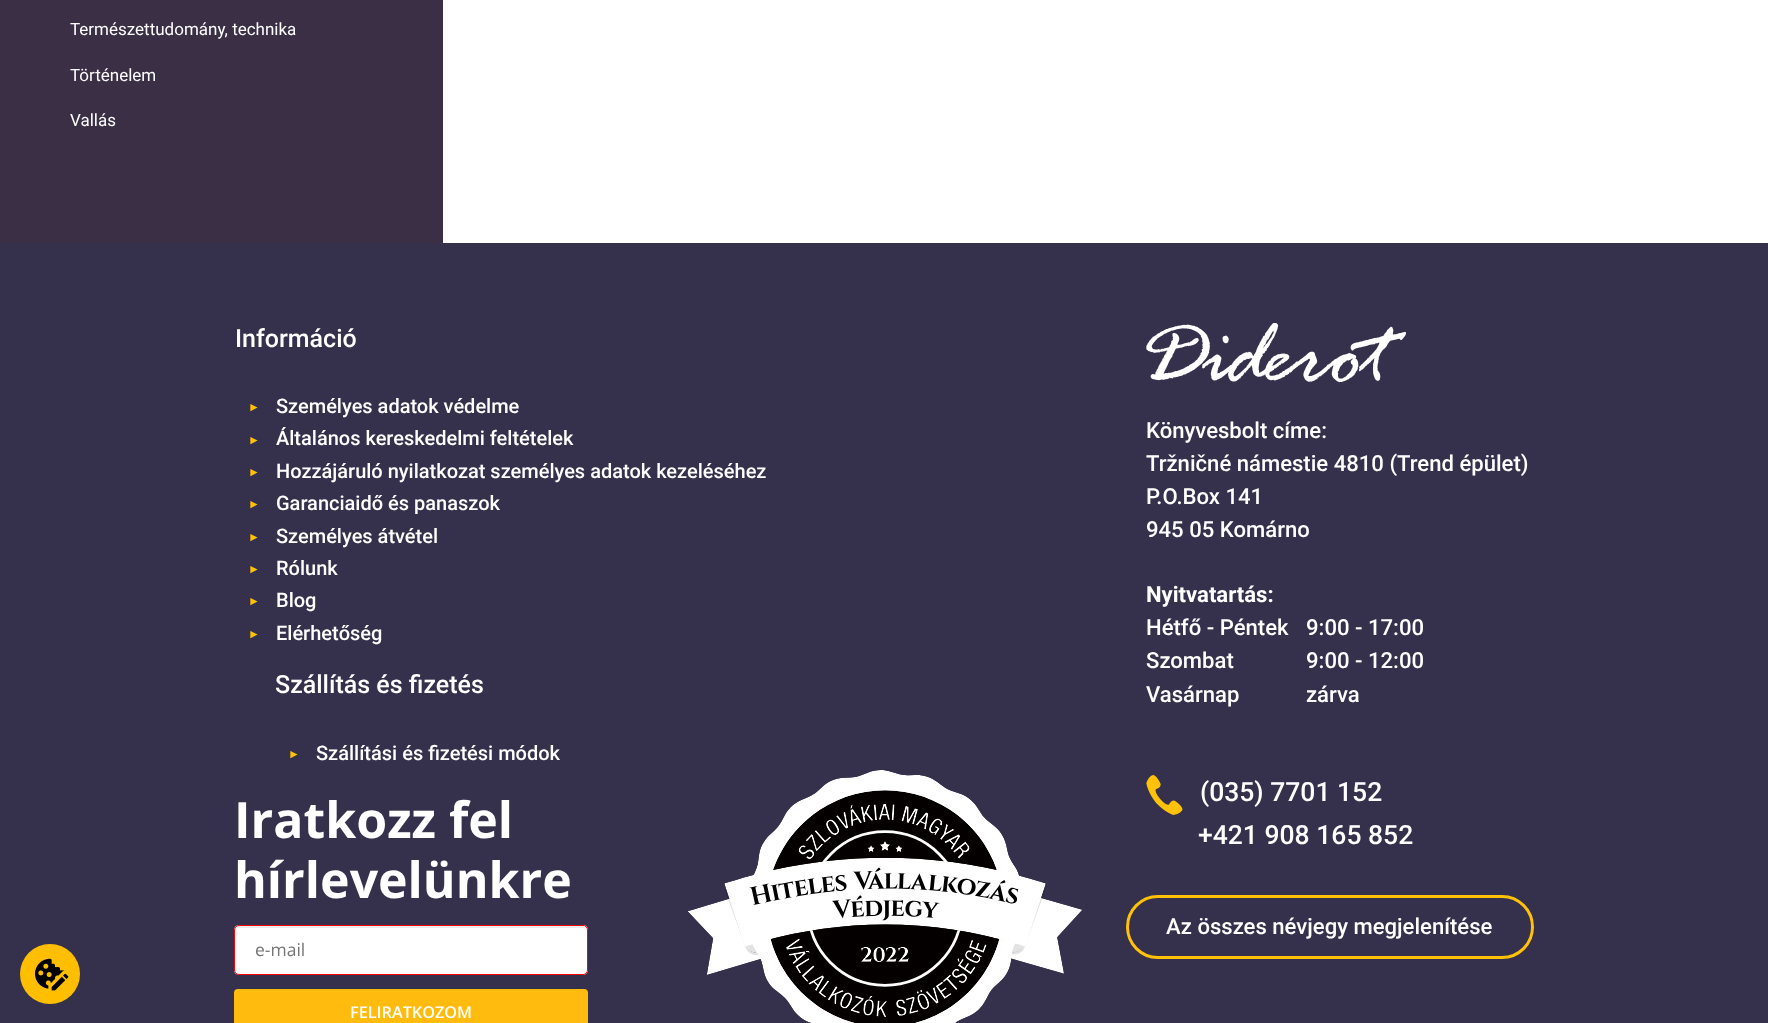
<svg xmlns="http://www.w3.org/2000/svg" width="1768" height="1023">
	<rect width="100%" height="100%" fill="#FFFFFF" />
	<rect x="0" y="0" width="443" height="243" fill="#3A2F45" />
	<g font-family="Roboto" font-size="17" fill="#FFFFFF">
		<text x="70" y="35">Természettudomány, technika</text>
		<text x="70" y="81">Történelem</text>
		<text x="70" y="126">Vallás</text>
	</g>
	<rect x="0" y="243" width="1768" height="780" fill="#35304B" />
	<circle cx="50" cy="974" r="30" fill="#FFBF00" />
	<image x="35" y="958" width="34" height="33" href="assets/img1.png" />
	<text x="235" y="347" font-family="Roboto" font-size="25" font-weight="500" fill="#FFFFFF">Információ</text>
	<text x="248" y="411" font-family="Liberation Sans" font-size="12" fill="#FFC209">►</text>
	<text x="276" y="413" font-family="Roboto" font-size="20" font-weight="500" fill="#FFFFFF">Személyes adatok védelme</text>
	<text x="248" y="444" font-family="Liberation Sans" font-size="12" fill="#FFC209">►</text>
	<text x="276" y="445" font-family="Roboto" font-size="20" font-weight="500" fill="#FFFFFF">Általános kereskedelmi feltételek</text>
	<text x="248" y="476" font-family="Liberation Sans" font-size="12" fill="#FFC209">►</text>
	<text x="276" y="478" font-family="Roboto" font-size="20" font-weight="500" fill="#FFFFFF">Hozzájáruló nyilatkozat személyes adatok kezeléséhez</text>
	<text x="248" y="508" font-family="Liberation Sans" font-size="12" fill="#FFC209">►</text>
	<text x="276" y="510" font-family="Roboto" font-size="20" font-weight="500" fill="#FFFFFF">Garanciaidő és panaszok</text>
	<text x="248" y="541" font-family="Liberation Sans" font-size="12" fill="#FFC209">►</text>
	<text x="276" y="543" font-family="Roboto" font-size="20" font-weight="500" fill="#FFFFFF">Személyes átvétel</text>
	<text x="248" y="573" font-family="Liberation Sans" font-size="12" fill="#FFC209">►</text>
	<text x="276" y="575" font-family="Roboto" font-size="20" font-weight="500" fill="#FFFFFF">Rólunk</text>
	<text x="248" y="605" font-family="Liberation Sans" font-size="12" fill="#FFC209">►</text>
	<text x="276" y="607" font-family="Roboto" font-size="20" font-weight="500" fill="#FFFFFF">Blog</text>
	<text x="248" y="638" font-family="Liberation Sans" font-size="12" fill="#FFC209">►</text>
	<text x="276" y="640" font-family="Roboto" font-size="20" font-weight="500" fill="#FFFFFF">Elérhetőség</text>
	<text x="275" y="693" font-family="Roboto" font-size="25" font-weight="500" fill="#FFFFFF">Szállítás és fizetés</text>
	<text x="288" y="758" font-family="Liberation Sans" font-size="12" fill="#FFC209">►</text>
	<text x="316" y="760" font-family="Roboto" font-size="20" font-weight="500" fill="#FFFFFF">Szállítási és fizetési módok</text>
	<g font-family="Open Sans" font-size="50" font-weight="700" fill="#FFFFFF">
		<text x="234" y="838">Iratkozz fel</text>
		<text x="234" y="898">hírlevelünkre</text>
	</g>
	<rect x="234" y="925" width="354" height="50" rx="5" fill="#FFFFFF" />
	<path d="M239 928H582C585 928 586 929 586 931L585 928L583 926H239C236 926 235 928 235 931C235 929 237 928 239 928Z" fill="#ECECEC" />
	<rect x="234.5" y="925.5" width="353" height="49" rx="4.5" fill="none" stroke="#FF0000" />
	<text x="255" y="956" font-family="Open Sans" font-size="17.5" fill="#757575">e-mail</text>
	<rect x="234" y="989" width="354" height="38" rx="4" fill="#FFBC0E" />
	<text x="350" y="1018" font-family="Open Sans" font-size="16.25" font-weight="600" fill="#FFFFFF">FELIRATKOZOM</text>
	<image x="688" y="770" width="394" height="253" href="assets/img2.png" />
	<image x="1146" y="323" width="260" height="60" href="assets/img3.png" />
	<g font-family="Roboto" font-size="22.1" font-weight="500" fill="#FFFFFF">
		<text x="1146" y="438">Könyvesbolt címe:</text>
		<text x="1146" y="471">Tržničné námestie 4810 (Trend épület)</text>
		<text x="1146" y="504">P.O.Box 141</text>
		<text x="1146" y="537">945 05 Komárno</text>
	</g>
	<text x="1146" y="602" font-family="Roboto" font-size="22.1" font-weight="700" fill="#FFFFFF">Nyitvatartás:</text>
	<g font-family="Roboto" font-size="22.1" font-weight="500" fill="#FFFFFF">
		<text x="1146" y="635">Hétfő - Péntek</text>
		<text x="1306" y="635">9:00 - 17:00</text>
		<text x="1146" y="668">Szombat</text>
		<text x="1306" y="668">9:00 - 12:00</text>
		<text x="1146" y="702">Vasárnap</text>
		<text x="1306" y="702">zárva</text>
	</g>
	<image x="1146" y="775" width="37" height="40" href="assets/img4.png" />
	<g font-family="Roboto" font-size="26.5" font-weight="500" fill="#FFFFFF">
		<text x="1200" y="801">(035) 7701 152</text>
		<text x="1198" y="844">+421 908 165 852</text>
	</g>
	<rect x="1127.5" y="896.5" width="405" height="61" rx="30.5" fill="none" stroke="#FFC209" stroke-width="3" />
	<text x="1166" y="934" font-family="Roboto" font-size="22.1" font-weight="500" fill="#FFFFFF">Az összes névjegy megjelenítése</text>
</svg>
